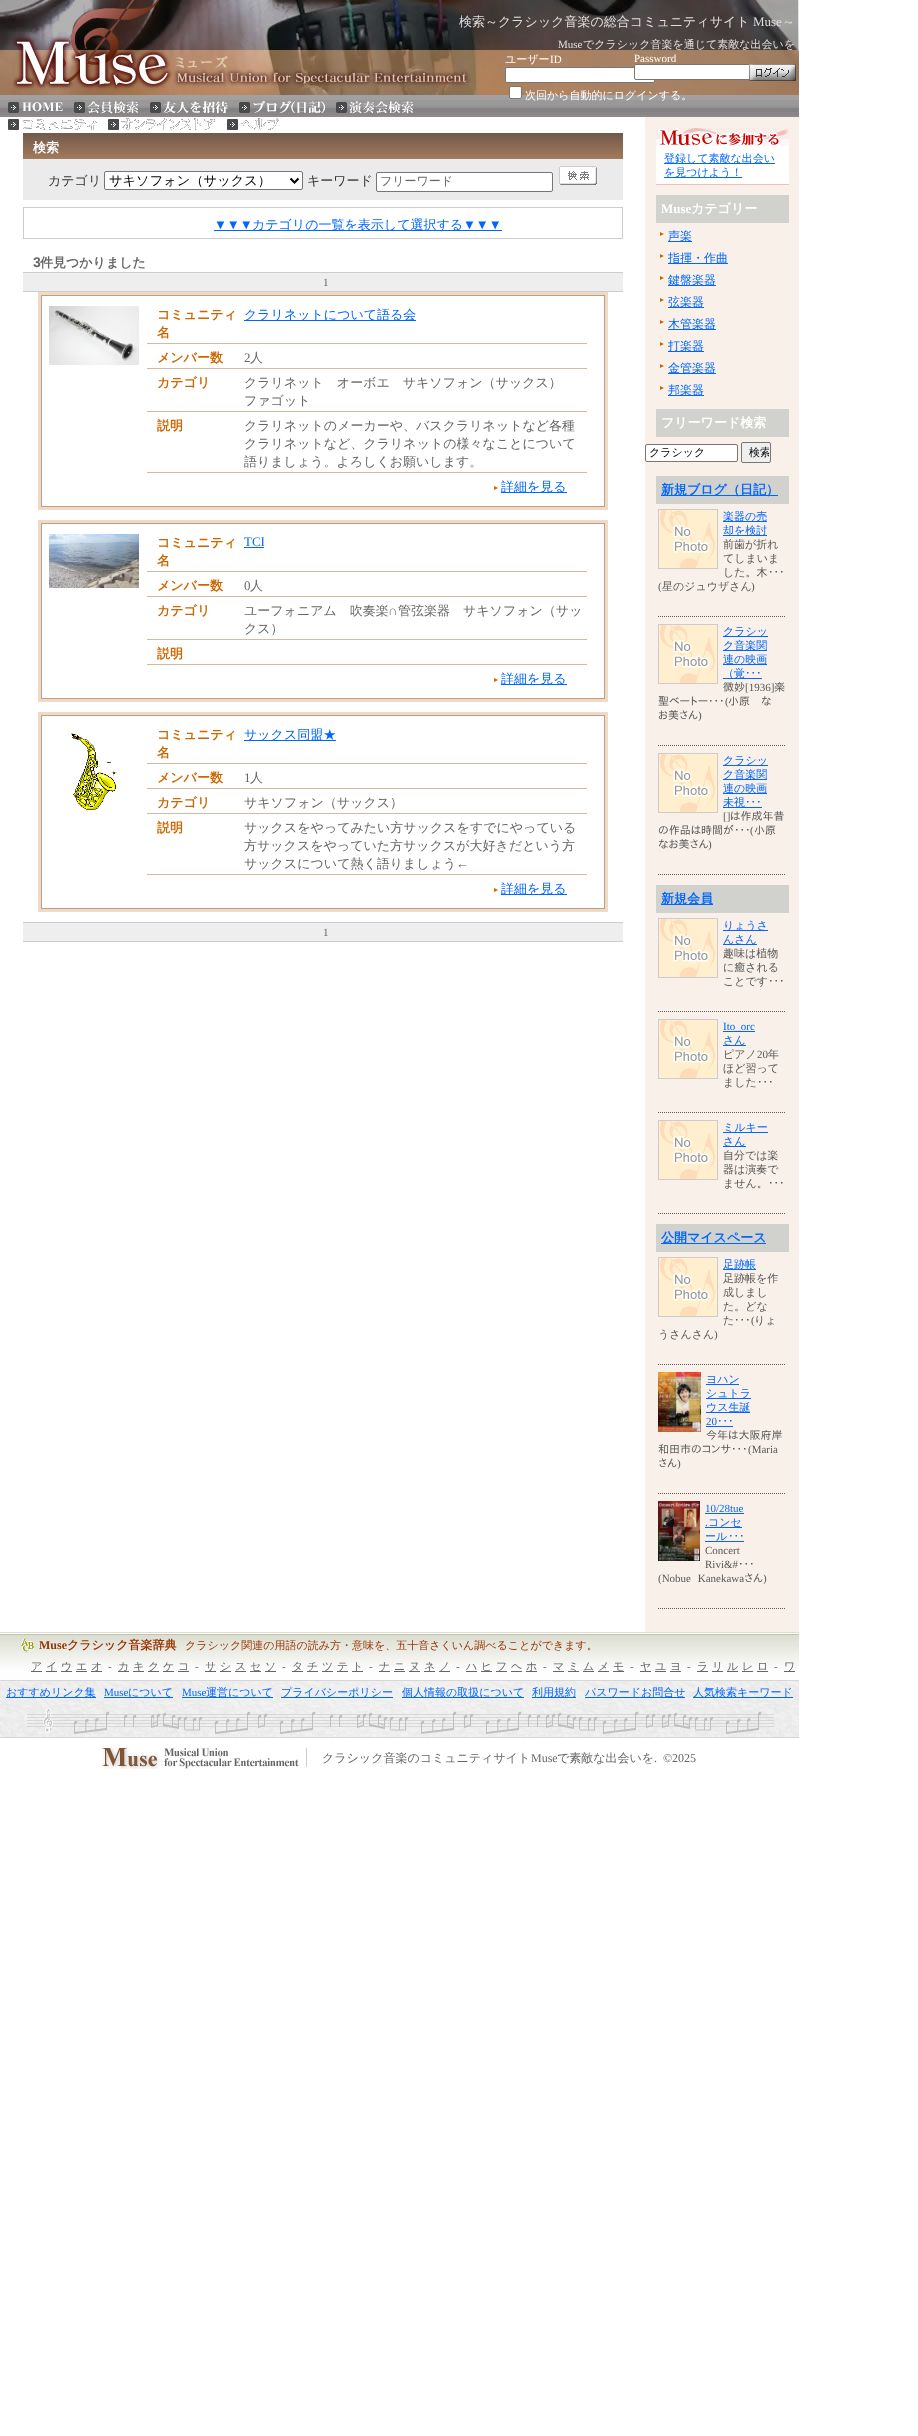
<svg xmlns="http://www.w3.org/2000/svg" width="918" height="2436">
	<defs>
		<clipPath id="clip1"><rect x="743" y="444" width="26" height="17" /></clipPath>
	</defs>
	<rect width="100%" height="100%" fill="#FFFFFF" />
	<image x="0" y="0" width="799" height="95" href="assets/img1.png" />
	<text x="459" y="26" font-family="WenQuanYi Zen Hei" font-size="13" font-weight="500" fill="#E2DEDE">検索～クラシック音楽の総合コミュニティサイト</text>
	<text x="753" y="26" font-family="Liberation Serif" font-size="13" fill="#E2DEDE">Muse</text>
	<text x="782" y="26" font-family="WenQuanYi Zen Hei" font-size="13" font-weight="500" fill="#E2DEDE">～</text>
	<text x="558" y="48" font-family="Liberation Serif" font-size="11" fill="#E2DEDE">Muse</text>
	<text x="583" y="48" font-family="WenQuanYi Zen Hei" font-size="11" font-weight="500" fill="#E2DEDE">でクラシック音楽を通じて素敵な出会いを</text>
	<text x="505" y="63" font-family="WenQuanYi Zen Hei" font-size="11" font-weight="500" fill="#FFFFFF">ユーザー</text>
	<text x="550" y="63" font-family="Liberation Serif" font-size="11" fill="#FFFFFF">ID</text>
	<rect x="505.5" y="67.5" width="149" height="15" rx="1.5" fill="#FFFFFF" stroke="#767676" />
	<text x="634" y="62" font-family="Liberation Serif" font-size="11" fill="#FFFFFF">Password</text>
	<rect x="634.5" y="64.5" width="123" height="15" rx="1.5" fill="#FFFFFF" stroke="#767676" />
	<image x="749" y="64" width="47" height="17" href="assets/img2.png" />
	<image x="0" y="95" width="799" height="22" href="assets/img3.png" />
	<rect x="509.5" y="86.5" width="12" height="12" rx="1.5" fill="#FFFFFF" stroke="#767676" />
	<text x="525" y="99" font-family="WenQuanYi Zen Hei" font-size="11" font-weight="500" fill="#FFFFFF">次回から自動的にログインする。</text>
	<image x="8" y="102" width="55" height="11" href="assets/img4.png" />
	<image x="74" y="101" width="64" height="13" href="assets/img5.png" />
	<image x="150" y="101" width="78" height="13" href="assets/img6.png" />
	<image x="239" y="101" width="86" height="12" href="assets/img7.png" />
	<image x="336" y="101" width="78" height="13" href="assets/img8.png" />
	<image x="8" y="119" width="89" height="11" href="assets/img9.png" />
	<image x="108" y="118" width="107" height="12" href="assets/img10.png" />
	<image x="227" y="118" width="52" height="12" href="assets/img11.png" />
	<rect x="645" y="117" width="154" height="1515" fill="#F8F0E9" />
	<image x="23" y="133" width="600" height="26" href="assets/img12.png" />
	<text x="33" y="152" font-family="WenQuanYi Zen Hei" font-size="13" font-weight="700" fill="#FFFFFF">検索</text>
	<rect x="23" y="159" width="600" height="41" fill="#EBEBEB" />
	<text x="48" y="185" font-family="WenQuanYi Zen Hei" font-size="13" font-weight="500" fill="#333333">カテゴリ</text>
	<rect x="104.5" y="171.5" width="198" height="18" rx="1.5" fill="#FFFFFF" stroke="#767676" />
	<path d="M290.5 178.5L294.5 182.5L298.5 178.5" fill="none" stroke="#000000" stroke-width="2" />
	<text x="109" y="185" font-family="WenQuanYi Zen Hei" font-size="13.25" font-weight="500" fill="#000000">サキソフォン（サックス）</text>
	<text x="307" y="185" font-family="WenQuanYi Zen Hei" font-size="13" font-weight="500" fill="#333333">キーワード</text>
	<rect x="376.5" y="172.5" width="176" height="19" rx="1.5" fill="#FFFFFF" stroke="#767676" />
	<text x="380" y="185" font-family="WenQuanYi Zen Hei" font-size="12" font-weight="500" fill="#666666">フリーワード</text>
	<image x="559" y="166" width="38" height="19" href="assets/img13.png" />
	<rect x="23.5" y="207.5" width="599" height="31" fill="none" stroke="#CCCCCC" />
	<text x="214" y="229" font-family="Liberation Serif" font-size="13" fill="#0066FF">▼▼▼</text>
	<rect x="214" y="230" width="288" height="1" fill="#0066FF" />
	<text x="252" y="229" font-family="WenQuanYi Zen Hei" font-size="13" font-weight="500" fill="#0066FF">カテゴリの一覧を表示して選択する</text>
	<text x="463" y="229" font-family="Liberation Serif" font-size="13" fill="#0066FF">▼▼▼</text>
	<text x="33" y="267" font-family="Liberation Sans" font-size="14" font-weight="700" fill="#666666">3</text>
	<text x="40" y="267" font-family="WenQuanYi Zen Hei" font-size="13" font-weight="700" fill="#666666">件見つかりました</text>
	<rect x="23" y="273" width="600" height="18" fill="#EEEEEE" />
	<rect x="23" y="272" width="600" height="1" fill="#CCCCCC" />
	<rect x="23" y="291" width="600" height="1" fill="#CCCCCC" />
	<text x="323" y="286" font-family="Liberation Serif" font-size="11" fill="#666666">1</text>
	<rect x="39.5" y="293.5" width="567" height="215" fill="none" stroke="#EDDAC7" stroke-width="3" />
	<rect x="41.5" y="295.5" width="563" height="211" fill="none" stroke="#BE9E7E" />
	<image x="49" y="306" width="90" height="59" href="assets/img14.png" />
	<g font-family="WenQuanYi Zen Hei" font-size="13" font-weight="700" fill="#CC6600">
		<text x="157" y="319">コミュニティ</text>
		<text x="157" y="337">名</text>
	</g>
	<rect x="244" y="320" width="172" height="1" fill="#0066FF" />
	<text x="244" y="319" font-family="WenQuanYi Zen Hei" font-size="13" font-weight="500" fill="#0066FF">クラリネットについて語る会</text>
	<rect x="147" y="343" width="440" height="1" fill="#D1BBA5" />
	<text x="157" y="362" font-family="WenQuanYi Zen Hei" font-size="13" font-weight="700" fill="#CC6600">メンバー数</text>
	<text x="244" y="362" font-family="Liberation Serif" font-size="13" fill="#666666">2</text>
	<text x="250" y="362" font-family="WenQuanYi Zen Hei" font-size="13" font-weight="500" fill="#666666">人</text>
	<rect x="147" y="368" width="440" height="1" fill="#D1BBA5" />
	<text x="157" y="387" font-family="WenQuanYi Zen Hei" font-size="13" font-weight="700" fill="#CC6600">カテゴリ</text>
	<g font-family="WenQuanYi Zen Hei" font-size="13" font-weight="500" fill="#666666">
		<text x="244" y="387">クラリネット　オーボエ　サキソフォン（サックス）</text>
		<text x="244" y="405">ファゴット</text>
	</g>
	<rect x="147" y="411" width="440" height="1" fill="#D1BBA5" />
	<text x="157" y="430" font-family="WenQuanYi Zen Hei" font-size="13" font-weight="700" fill="#CC6600">説明</text>
	<g font-family="WenQuanYi Zen Hei" font-size="13" font-weight="500" fill="#666666">
		<text x="244" y="430">クラリネットのメーカーや、バスクラリネットなど各種</text>
		<text x="244" y="448">クラリネットなど、クラリネットの様々なことについて</text>
		<text x="244" y="466">語りましょう。よろしくお願いします。</text>
	</g>
	<rect x="147" y="472" width="440" height="1" fill="#D1BBA5" />
	<image x="494" y="486" width="4" height="4" href="assets/img15.png" />
	<rect x="501" y="492" width="66" height="1" fill="#0066FF" />
	<text x="501" y="491" font-family="WenQuanYi Zen Hei" font-size="13" font-weight="500" fill="#0066FF">詳細を見る</text>
	<rect x="39.5" y="521.5" width="567" height="179" fill="none" stroke="#EDDAC7" stroke-width="3" />
	<rect x="41.5" y="523.5" width="563" height="175" fill="none" stroke="#BE9E7E" />
	<image x="49" y="534" width="90" height="54" href="assets/img16.png" />
	<g font-family="WenQuanYi Zen Hei" font-size="13" font-weight="700" fill="#CC6600">
		<text x="157" y="547">コミュニティ</text>
		<text x="157" y="565">名</text>
	</g>
	<text x="244" y="546" font-family="Liberation Serif" font-size="13" fill="#0066FF">TCI</text>
	<rect x="244" y="547" width="20" height="1" fill="#0066FF" />
	<rect x="147" y="571" width="440" height="1" fill="#D1BBA5" />
	<text x="157" y="590" font-family="WenQuanYi Zen Hei" font-size="13" font-weight="700" fill="#CC6600">メンバー数</text>
	<text x="244" y="590" font-family="Liberation Serif" font-size="13" fill="#666666">0</text>
	<text x="250" y="590" font-family="WenQuanYi Zen Hei" font-size="13" font-weight="500" fill="#666666">人</text>
	<rect x="147" y="596" width="440" height="1" fill="#D1BBA5" />
	<text x="157" y="615" font-family="WenQuanYi Zen Hei" font-size="13" font-weight="700" fill="#CC6600">カテゴリ</text>
	<text x="244" y="615" font-family="WenQuanYi Zen Hei" font-size="13" font-weight="500" fill="#666666">ユーフォニアム　吹奏楽</text>
	<text x="388" y="615" font-family="Liberation Serif" font-size="13" fill="#666666">∩</text>
	<g font-family="WenQuanYi Zen Hei" font-size="13" font-weight="500" fill="#666666">
		<text x="398" y="615">管弦楽器　サキソフォン（サッ</text>
		<text x="244" y="633">クス）</text>
	</g>
	<rect x="147" y="639" width="440" height="1" fill="#D1BBA5" />
	<text x="157" y="658" font-family="WenQuanYi Zen Hei" font-size="13" font-weight="700" fill="#CC6600">説明</text>
	<rect x="147" y="664" width="440" height="1" fill="#D1BBA5" />
	<image x="494" y="678" width="4" height="4" href="assets/img15.png" />
	<rect x="501" y="684" width="66" height="1" fill="#0066FF" />
	<text x="501" y="683" font-family="WenQuanYi Zen Hei" font-size="13" font-weight="500" fill="#0066FF">詳細を見る</text>
	<rect x="39.5" y="713.5" width="567" height="197" fill="none" stroke="#EDDAC7" stroke-width="3" />
	<rect x="41.5" y="715.5" width="563" height="193" fill="none" stroke="#BE9E7E" />
	<image x="71" y="733" width="46" height="77" href="assets/img17.png" />
	<g font-family="WenQuanYi Zen Hei" font-size="13" font-weight="700" fill="#CC6600">
		<text x="157" y="739">コミュニティ</text>
		<text x="157" y="757">名</text>
	</g>
	<rect x="244" y="740" width="92" height="1" fill="#0066FF" />
	<text x="244" y="739" font-family="WenQuanYi Zen Hei" font-size="13" font-weight="500" fill="#0066FF">サックス同盟★</text>
	<rect x="147" y="763" width="440" height="1" fill="#D1BBA5" />
	<text x="157" y="782" font-family="WenQuanYi Zen Hei" font-size="13" font-weight="700" fill="#CC6600">メンバー数</text>
	<text x="244" y="782" font-family="Liberation Serif" font-size="13" fill="#666666">1</text>
	<text x="250" y="782" font-family="WenQuanYi Zen Hei" font-size="13" font-weight="500" fill="#666666">人</text>
	<rect x="147" y="788" width="440" height="1" fill="#D1BBA5" />
	<text x="157" y="807" font-family="WenQuanYi Zen Hei" font-size="13" font-weight="700" fill="#CC6600">カテゴリ</text>
	<text x="244" y="807" font-family="WenQuanYi Zen Hei" font-size="13" font-weight="500" fill="#666666">サキソフォン（サックス）</text>
	<rect x="147" y="813" width="440" height="1" fill="#D1BBA5" />
	<text x="157" y="832" font-family="WenQuanYi Zen Hei" font-size="13" font-weight="700" fill="#CC6600">説明</text>
	<g font-family="WenQuanYi Zen Hei" font-size="13" font-weight="500" fill="#666666">
		<text x="244" y="832">サックスをやってみたい方サックスをすでにやっている</text>
		<text x="244" y="850">方サックスをやっていた方サックスが大好きだという方</text>
		<text x="244" y="868">サックスについて熱く語りましょう</text>
	</g>
	<text x="456" y="868" font-family="Liberation Serif" font-size="13" fill="#666666">←</text>
	<rect x="147" y="874" width="440" height="1" fill="#D1BBA5" />
	<image x="494" y="888" width="4" height="4" href="assets/img15.png" />
	<rect x="501" y="894" width="66" height="1" fill="#0066FF" />
	<text x="501" y="893" font-family="WenQuanYi Zen Hei" font-size="13" font-weight="500" fill="#0066FF">詳細を見る</text>
	<rect x="23" y="923" width="600" height="18" fill="#EEEEEE" />
	<rect x="23" y="922" width="600" height="1" fill="#CCCCCC" />
	<rect x="23" y="941" width="600" height="1" fill="#CCCCCC" />
	<text x="323" y="936" font-family="Liberation Serif" font-size="11" fill="#666666">1</text>
	<image x="656" y="128" width="133" height="18" href="assets/img18.png" />
	<rect x="656" y="146" width="133" height="38" fill="#FFFFFF" />
	<rect x="656" y="184" width="133" height="1" fill="#F0BEBB" />
	<rect x="664" y="163" width="111" height="1" fill="#0066FF" />
	<text x="664" y="162" font-family="WenQuanYi Zen Hei" font-size="11" font-weight="500" fill="#0066FF">登録して素敵な出会い</text>
	<rect x="664" y="177" width="78" height="1" fill="#0066FF" />
	<text x="664" y="176" font-family="WenQuanYi Zen Hei" font-size="11" font-weight="500" fill="#0066FF">を見つけよう！</text>
	<rect x="656" y="195" width="133" height="28" fill="#D1D2CD" />
	<text x="661" y="213" font-family="Liberation Serif" font-size="13" font-weight="700" fill="#FFFFFF">Muse</text>
	<text x="691" y="213" font-family="WenQuanYi Zen Hei" font-size="13" font-weight="700" fill="#FFFFFF">カテゴリー</text>
	<image x="660" y="232" width="4" height="4" href="assets/img15.png" />
	<rect x="668" y="241" width="24" height="1" fill="#0066FF" />
	<text x="668" y="240" font-family="WenQuanYi Zen Hei" font-size="12" font-weight="500" fill="#0066FF">声楽</text>
	<image x="660" y="254" width="4" height="4" href="assets/img15.png" />
	<rect x="668" y="263" width="60" height="1" fill="#0066FF" />
	<text x="668" y="262" font-family="WenQuanYi Zen Hei" font-size="12" font-weight="500" fill="#0066FF">指揮・作曲</text>
	<image x="660" y="276" width="4" height="4" href="assets/img15.png" />
	<rect x="668" y="285" width="48" height="1" fill="#0066FF" />
	<text x="668" y="284" font-family="WenQuanYi Zen Hei" font-size="12" font-weight="500" fill="#0066FF">鍵盤楽器</text>
	<image x="660" y="298" width="4" height="4" href="assets/img15.png" />
	<rect x="668" y="307" width="36" height="1" fill="#0066FF" />
	<text x="668" y="306" font-family="WenQuanYi Zen Hei" font-size="12" font-weight="500" fill="#0066FF">弦楽器</text>
	<image x="660" y="320" width="4" height="4" href="assets/img15.png" />
	<rect x="668" y="329" width="48" height="1" fill="#0066FF" />
	<text x="668" y="328" font-family="WenQuanYi Zen Hei" font-size="12" font-weight="500" fill="#0066FF">木管楽器</text>
	<image x="660" y="342" width="4" height="4" href="assets/img15.png" />
	<rect x="668" y="351" width="36" height="1" fill="#0066FF" />
	<text x="668" y="350" font-family="WenQuanYi Zen Hei" font-size="12" font-weight="500" fill="#0066FF">打楽器</text>
	<image x="660" y="364" width="4" height="4" href="assets/img15.png" />
	<rect x="668" y="373" width="48" height="1" fill="#0066FF" />
	<text x="668" y="372" font-family="WenQuanYi Zen Hei" font-size="12" font-weight="500" fill="#0066FF">金管楽器</text>
	<image x="660" y="386" width="4" height="4" href="assets/img15.png" />
	<rect x="668" y="395" width="36" height="1" fill="#0066FF" />
	<text x="668" y="394" font-family="WenQuanYi Zen Hei" font-size="12" font-weight="500" fill="#0066FF">邦楽器</text>
	<rect x="656" y="409" width="133" height="28" fill="#D1D2CD" />
	<text x="661" y="427" font-family="WenQuanYi Zen Hei" font-size="13" font-weight="700" fill="#FFFFFF">フリーワード検索</text>
	<rect x="645.5" y="444.5" width="92" height="17" rx="1.5" fill="#FFFFFF" stroke="#767676" />
	<text x="649" y="456" font-family="WenQuanYi Zen Hei" font-size="11" font-weight="500" fill="#000000">クラシック</text>
	<rect x="741.5" y="442.5" width="29" height="20" rx="1.5" fill="#EFEFEF" stroke="#767676" />
	<g clip-path="url(#clip1)">
		<text x="749" y="456" font-family="WenQuanYi Zen Hei" font-size="11" font-weight="500" fill="#000000">検索</text>
	</g>
	<rect x="656" y="476" width="133" height="28" fill="#D1D2CD" />
	<rect x="661" y="495" width="117" height="1" fill="#0066FF" />
	<text x="661" y="494" font-family="WenQuanYi Zen Hei" font-size="13" font-weight="700" fill="#0066FF">新規ブログ（日記）</text>
	<image x="658" y="509" width="60" height="60" href="assets/img19.png" />
	<rect x="723" y="521" width="44" height="1" fill="#0066FF" />
	<text x="723" y="520" font-family="WenQuanYi Zen Hei" font-size="11" font-weight="500" fill="#0066FF">楽器の売</text>
	<rect x="723" y="535" width="44" height="1" fill="#0066FF" />
	<text x="723" y="534" font-family="WenQuanYi Zen Hei" font-size="11" font-weight="500" fill="#0066FF">却を検討</text>
	<g font-family="WenQuanYi Zen Hei" font-size="11" font-weight="500" fill="#585858">
		<text x="723" y="548">前歯が折れ</text>
		<text x="723" y="562">てしまいま</text>
		<text x="723" y="576">した。木</text>
	</g>
	<text x="768" y="576" font-family="IPAPGothic" font-size="11" fill="#585858">･･･</text>
	<text x="658" y="590" font-family="Liberation Serif" font-size="11" fill="#585858">(</text>
	<text x="662" y="590" font-family="WenQuanYi Zen Hei" font-size="11" font-weight="500" fill="#585858">星のジュウザさん</text>
	<text x="751" y="590" font-family="Liberation Serif" font-size="11" fill="#585858">)</text>
	<image x="658" y="616" width="127" height="1" href="assets/img20.png" />
	<image x="658" y="624" width="60" height="60" href="assets/img19.png" />
	<rect x="723" y="636" width="45" height="1" fill="#0066FF" />
	<text x="723" y="635" font-family="WenQuanYi Zen Hei" font-size="11" font-weight="500" fill="#0066FF">クラシッ</text>
	<rect x="723" y="650" width="44" height="1" fill="#0066FF" />
	<text x="723" y="649" font-family="WenQuanYi Zen Hei" font-size="11" font-weight="500" fill="#0066FF">ク音楽関</text>
	<rect x="723" y="664" width="44" height="1" fill="#0066FF" />
	<text x="723" y="663" font-family="WenQuanYi Zen Hei" font-size="11" font-weight="500" fill="#0066FF">連の映画</text>
	<rect x="723" y="678" width="39" height="1" fill="#0066FF" />
	<text x="723" y="677" font-family="WenQuanYi Zen Hei" font-size="11" font-weight="500" fill="#0066FF">（覚</text>
	<text x="745" y="677" font-family="IPAPGothic" font-size="11" fill="#0066FF">･･･</text>
	<text x="723" y="691" font-family="IPAPGothic" font-size="11" fill="#585858">微妙</text>
	<text x="745" y="691" font-family="Liberation Serif" font-size="11" fill="#585858">[1936]</text>
	<g font-family="IPAPGothic" font-size="11" fill="#585858">
		<text x="774" y="691">楽</text>
		<text x="658" y="705">聖ベートー･･･</text>
	</g>
	<text x="725" y="705" font-family="Liberation Serif" font-size="11" fill="#585858">(</text>
	<g font-family="IPAPGothic" font-size="11" fill="#585858">
		<text x="728" y="705">小原　な</text>
		<text x="658" y="719">お美さん</text>
	</g>
	<text x="698" y="719" font-family="Liberation Serif" font-size="11" fill="#585858">)</text>
	<image x="658" y="745" width="127" height="1" href="assets/img20.png" />
	<image x="658" y="753" width="60" height="60" href="assets/img19.png" />
	<rect x="723" y="765" width="45" height="1" fill="#0066FF" />
	<text x="723" y="764" font-family="WenQuanYi Zen Hei" font-size="11" font-weight="500" fill="#0066FF">クラシッ</text>
	<rect x="723" y="779" width="44" height="1" fill="#0066FF" />
	<text x="723" y="778" font-family="WenQuanYi Zen Hei" font-size="11" font-weight="500" fill="#0066FF">ク音楽関</text>
	<rect x="723" y="793" width="44" height="1" fill="#0066FF" />
	<text x="723" y="792" font-family="WenQuanYi Zen Hei" font-size="11" font-weight="500" fill="#0066FF">連の映画</text>
	<rect x="723" y="807" width="39" height="1" fill="#0066FF" />
	<text x="723" y="806" font-family="WenQuanYi Zen Hei" font-size="11" font-weight="500" fill="#0066FF">未視</text>
	<text x="745" y="806" font-family="IPAPGothic" font-size="11" fill="#0066FF">･･･</text>
	<text x="723" y="820" font-family="Liberation Serif" font-size="11" fill="#585858">[]</text>
	<g font-family="IPAPGothic" font-size="11" fill="#585858">
		<text x="730" y="820">は作成年昔</text>
		<text x="658" y="834">の作品は時間が･･･</text>
	</g>
	<text x="750" y="834" font-family="Liberation Serif" font-size="11" fill="#585858">(</text>
	<g font-family="IPAPGothic" font-size="11" fill="#585858">
		<text x="754" y="834">小原</text>
		<text x="658" y="848">なお美さん</text>
	</g>
	<text x="708" y="848" font-family="Liberation Serif" font-size="11" fill="#585858">)</text>
	<image x="658" y="874" width="127" height="1" href="assets/img20.png" />
	<rect x="656" y="885" width="133" height="28" fill="#D1D2CD" />
	<rect x="661" y="904" width="52" height="1" fill="#0066FF" />
	<text x="661" y="903" font-family="WenQuanYi Zen Hei" font-size="13" font-weight="700" fill="#0066FF">新規会員</text>
	<image x="658" y="918" width="60" height="60" href="assets/img19.png" />
	<rect x="723" y="930" width="45" height="1" fill="#0066FF" />
	<text x="723" y="929" font-family="WenQuanYi Zen Hei" font-size="11" font-weight="500" fill="#0066FF">りょうさ</text>
	<rect x="723" y="944" width="34" height="1" fill="#0066FF" />
	<text x="723" y="943" font-family="WenQuanYi Zen Hei" font-size="11" font-weight="500" fill="#0066FF">んさん</text>
	<g font-family="WenQuanYi Zen Hei" font-size="11" font-weight="500" fill="#585858">
		<text x="723" y="957">趣味は植物</text>
		<text x="723" y="971">に癒される</text>
		<text x="723" y="985">ことです</text>
	</g>
	<text x="768" y="985" font-family="IPAPGothic" font-size="11" fill="#585858">･･･</text>
	<image x="658" y="1011" width="127" height="1" href="assets/img20.png" />
	<image x="658" y="1019" width="60" height="60" href="assets/img19.png" />
	<rect x="723" y="1031" width="32" height="1" fill="#0066FF" />
	<text x="723" y="1030" font-family="Liberation Serif" font-size="11" fill="#0066FF">Ito_orc</text>
	<rect x="723" y="1045" width="23" height="1" fill="#0066FF" />
	<text x="723" y="1044" font-family="WenQuanYi Zen Hei" font-size="11" font-weight="500" fill="#0066FF">さん</text>
	<text x="723" y="1058" font-family="WenQuanYi Zen Hei" font-size="11" font-weight="500" fill="#585858">ピアノ</text>
	<text x="757" y="1058" font-family="Liberation Serif" font-size="11" fill="#585858">20</text>
	<g font-family="WenQuanYi Zen Hei" font-size="11" font-weight="500" fill="#585858">
		<text x="768" y="1058">年</text>
		<text x="723" y="1072">ほど習って</text>
		<text x="723" y="1086">ました</text>
	</g>
	<text x="757" y="1086" font-family="IPAPGothic" font-size="11" fill="#585858">･･･</text>
	<image x="658" y="1112" width="127" height="1" href="assets/img20.png" />
	<image x="658" y="1120" width="60" height="60" href="assets/img19.png" />
	<rect x="723" y="1132" width="45" height="1" fill="#0066FF" />
	<text x="723" y="1131" font-family="WenQuanYi Zen Hei" font-size="11" font-weight="500" fill="#0066FF">ミルキー</text>
	<rect x="723" y="1146" width="23" height="1" fill="#0066FF" />
	<text x="723" y="1145" font-family="WenQuanYi Zen Hei" font-size="11" font-weight="500" fill="#0066FF">さん</text>
	<g font-family="WenQuanYi Zen Hei" font-size="11" font-weight="500" fill="#585858">
		<text x="723" y="1159">自分では楽</text>
		<text x="723" y="1173">器は演奏で</text>
		<text x="723" y="1187">ません。</text>
	</g>
	<text x="768" y="1187" font-family="IPAPGothic" font-size="11" fill="#585858">･･･</text>
	<image x="658" y="1213" width="127" height="1" href="assets/img20.png" />
	<rect x="656" y="1224" width="133" height="28" fill="#D1D2CD" />
	<rect x="661" y="1243" width="105" height="1" fill="#0066FF" />
	<text x="661" y="1242" font-family="WenQuanYi Zen Hei" font-size="13" font-weight="700" fill="#0066FF">公開マイスペース</text>
	<image x="658" y="1257" width="60" height="60" href="assets/img19.png" />
	<rect x="723" y="1269" width="33" height="1" fill="#0066FF" />
	<text x="723" y="1268" font-family="WenQuanYi Zen Hei" font-size="11" font-weight="500" fill="#0066FF">足跡帳</text>
	<g font-family="WenQuanYi Zen Hei" font-size="11" font-weight="500" fill="#585858">
		<text x="723" y="1282">足跡帳を作</text>
		<text x="723" y="1296">成しまし</text>
		<text x="723" y="1310">た。どな</text>
		<text x="723" y="1324">た</text>
	</g>
	<text x="734" y="1324" font-family="IPAPGothic" font-size="11" fill="#585858">･･･</text>
	<text x="751" y="1324" font-family="Liberation Serif" font-size="11" fill="#585858">(</text>
	<g font-family="WenQuanYi Zen Hei" font-size="11" font-weight="500" fill="#585858">
		<text x="754" y="1324">りょ</text>
		<text x="658" y="1338">うさんさん</text>
	</g>
	<text x="714" y="1338" font-family="Liberation Serif" font-size="11" fill="#585858">)</text>
	<image x="658" y="1364" width="127" height="1" href="assets/img20.png" />
	<image x="658" y="1372" width="43" height="60" href="assets/img21.png" />
	<text x="706" y="1383" font-family="WenQuanYi Zen Hei" font-size="11" font-weight="500" fill="#0066FF">ヨハン</text>
	<rect x="706" y="1384" width="33" height="1" fill="#0066FF" />
	<rect x="706" y="1398" width="45" height="1" fill="#0066FF" />
	<text x="706" y="1397" font-family="WenQuanYi Zen Hei" font-size="11" font-weight="500" fill="#0066FF">シュトラ</text>
	<rect x="706" y="1412" width="44" height="1" fill="#0066FF" />
	<text x="706" y="1411" font-family="WenQuanYi Zen Hei" font-size="11" font-weight="500" fill="#0066FF">ウス生誕</text>
	<text x="706" y="1425" font-family="Liberation Serif" font-size="11" fill="#0066FF">20</text>
	<rect x="706" y="1426" width="27" height="1" fill="#0066FF" />
	<text x="717" y="1425" font-family="IPAPGothic" font-size="11" fill="#0066FF">･･･</text>
	<g font-family="IPAPGothic" font-size="11" fill="#585858">
		<text x="706" y="1439">今年は大阪府岸</text>
		<text x="658" y="1453">和田市のコンサ･･･</text>
	</g>
	<text x="748" y="1453" font-family="Liberation Serif" font-size="11" fill="#585858">(Maria</text>
	<text x="658" y="1467" font-family="IPAPGothic" font-size="11" fill="#585858">さん</text>
	<text x="677" y="1467" font-family="Liberation Serif" font-size="11" fill="#585858">)</text>
	<image x="658" y="1493" width="127" height="1" href="assets/img20.png" />
	<image x="658" y="1501" width="42" height="60" href="assets/img22.png" />
	<text x="705" y="1512" font-family="Liberation Serif" font-size="11" fill="#0066FF">10/28tue</text>
	<rect x="705" y="1513" width="39" height="1" fill="#0066FF" />
	<text x="705" y="1526" font-family="Liberation Serif" font-size="11" fill="#0066FF">.</text>
	<rect x="705" y="1527" width="37" height="1" fill="#0066FF" />
	<g font-family="WenQuanYi Zen Hei" font-size="11" font-weight="500" fill="#0066FF">
		<text x="708" y="1526">コンセ</text>
		<text x="705" y="1540">ール</text>
	</g>
	<rect x="705" y="1541" width="39" height="1" fill="#0066FF" />
	<text x="728" y="1540" font-family="IPAPGothic" font-size="11" fill="#0066FF">･･･</text>
	<g font-family="Liberation Serif" font-size="11" fill="#585858">
		<text x="705" y="1554">Concert</text>
		<text x="705" y="1568">Rivi&amp;#</text>
	</g>
	<text x="738" y="1568" font-family="IPAPGothic" font-size="11" fill="#585858">･･･</text>
	<text x="658" y="1582" word-spacing="4" font-family="Liberation Serif" font-size="11" fill="#585858">(Nobue Kanekawa</text>
	<text x="744" y="1582" font-family="IPAPGothic" font-size="11" fill="#585858">さん</text>
	<text x="763" y="1582" font-family="Liberation Serif" font-size="11" fill="#585858">)</text>
	<image x="658" y="1608" width="127" height="1" href="assets/img20.png" />
	<image x="0" y="1632" width="799" height="48" href="assets/img23.png" />
	<image x="20" y="1638" width="15" height="15" href="assets/img24.png" />
	<text x="39" y="1649" font-family="Liberation Serif" font-size="12" font-weight="700" fill="#993300">Muse</text>
	<text x="67" y="1649" font-family="WenQuanYi Zen Hei" font-size="12" font-weight="700" fill="#993300">クラシック音楽辞典</text>
	<text x="185" y="1649" font-family="WenQuanYi Zen Hei" font-size="11" font-weight="500" fill="#993300">クラシック関連の用語の読み方・意味を、五十音さくいん調べることができます。</text>
	<text x="31" y="1670" font-family="WenQuanYi Zen Hei" font-size="11" font-weight="500" fill="#666666">ア</text>
	<rect x="31" y="1671" width="11" height="1" fill="#666666" />
	<rect x="46" y="1671" width="11" height="1" fill="#666666" />
	<text x="46" y="1670" font-family="WenQuanYi Zen Hei" font-size="11" font-weight="500" fill="#666666">イ</text>
	<rect x="61" y="1671" width="11" height="1" fill="#666666" />
	<g font-family="WenQuanYi Zen Hei" font-size="11" font-weight="500" fill="#666666">
		<text x="61" y="1670">ウ</text>
		<text x="76" y="1670">エ</text>
	</g>
	<rect x="76" y="1671" width="11" height="1" fill="#666666" />
	<rect x="91" y="1671" width="11" height="1" fill="#666666" />
	<text x="91" y="1670" font-family="WenQuanYi Zen Hei" font-size="11" font-weight="500" fill="#666666">オ</text>
	<text x="108" y="1670" font-family="Liberation Serif" font-size="11" fill="#666666">-</text>
	<text x="118" y="1670" font-family="WenQuanYi Zen Hei" font-size="11" font-weight="500" fill="#666666">カ</text>
	<rect x="118" y="1671" width="11" height="1" fill="#666666" />
	<rect x="133" y="1671" width="11" height="1" fill="#666666" />
	<text x="133" y="1670" font-family="WenQuanYi Zen Hei" font-size="11" font-weight="500" fill="#666666">キ</text>
	<rect x="148" y="1671" width="11" height="1" fill="#666666" />
	<text x="148" y="1670" font-family="WenQuanYi Zen Hei" font-size="11" font-weight="500" fill="#666666">ク</text>
	<rect x="163" y="1671" width="11" height="1" fill="#666666" />
	<g font-family="WenQuanYi Zen Hei" font-size="11" font-weight="500" fill="#666666">
		<text x="163" y="1670">ケ</text>
		<text x="178" y="1670">コ</text>
	</g>
	<rect x="178" y="1671" width="11" height="1" fill="#666666" />
	<text x="195" y="1670" font-family="Liberation Serif" font-size="11" fill="#666666">-</text>
	<rect x="205" y="1671" width="11" height="1" fill="#666666" />
	<g font-family="WenQuanYi Zen Hei" font-size="11" font-weight="500" fill="#666666">
		<text x="205" y="1670">サ</text>
		<text x="220" y="1670">シ</text>
	</g>
	<rect x="220" y="1671" width="11" height="1" fill="#666666" />
	<text x="235" y="1670" font-family="WenQuanYi Zen Hei" font-size="11" font-weight="500" fill="#666666">ス</text>
	<rect x="235" y="1671" width="11" height="1" fill="#666666" />
	<text x="250" y="1670" font-family="WenQuanYi Zen Hei" font-size="11" font-weight="500" fill="#666666">セ</text>
	<rect x="250" y="1671" width="11" height="1" fill="#666666" />
	<rect x="265" y="1671" width="11" height="1" fill="#666666" />
	<text x="265" y="1670" font-family="WenQuanYi Zen Hei" font-size="11" font-weight="500" fill="#666666">ソ</text>
	<text x="282" y="1670" font-family="Liberation Serif" font-size="11" fill="#666666">-</text>
	<rect x="292" y="1671" width="11" height="1" fill="#666666" />
	<text x="292" y="1670" font-family="WenQuanYi Zen Hei" font-size="11" font-weight="500" fill="#666666">タ</text>
	<rect x="307" y="1671" width="11" height="1" fill="#666666" />
	<g font-family="WenQuanYi Zen Hei" font-size="11" font-weight="500" fill="#666666">
		<text x="307" y="1670">チ</text>
		<text x="322" y="1670">ツ</text>
	</g>
	<rect x="322" y="1671" width="11" height="1" fill="#666666" />
	<rect x="337" y="1671" width="11" height="1" fill="#666666" />
	<text x="337" y="1670" font-family="WenQuanYi Zen Hei" font-size="11" font-weight="500" fill="#666666">テ</text>
	<rect x="352" y="1671" width="11" height="1" fill="#666666" />
	<text x="352" y="1670" font-family="WenQuanYi Zen Hei" font-size="11" font-weight="500" fill="#666666">ト</text>
	<text x="369" y="1670" font-family="Liberation Serif" font-size="11" fill="#666666">-</text>
	<rect x="379" y="1671" width="11" height="1" fill="#666666" />
	<g font-family="WenQuanYi Zen Hei" font-size="11" font-weight="500" fill="#666666">
		<text x="379" y="1670">ナ</text>
		<text x="394" y="1670">ニ</text>
	</g>
	<rect x="394" y="1671" width="11" height="1" fill="#666666" />
	<rect x="409" y="1671" width="11" height="1" fill="#666666" />
	<text x="409" y="1670" font-family="WenQuanYi Zen Hei" font-size="11" font-weight="500" fill="#666666">ヌ</text>
	<rect x="424" y="1671" width="11" height="1" fill="#666666" />
	<g font-family="WenQuanYi Zen Hei" font-size="11" font-weight="500" fill="#666666">
		<text x="424" y="1670">ネ</text>
		<text x="439" y="1670">ノ</text>
	</g>
	<rect x="439" y="1671" width="11" height="1" fill="#666666" />
	<text x="456" y="1670" font-family="Liberation Serif" font-size="11" fill="#666666">-</text>
	<text x="466" y="1670" font-family="WenQuanYi Zen Hei" font-size="11" font-weight="500" fill="#666666">ハ</text>
	<rect x="466" y="1671" width="11" height="1" fill="#666666" />
	<text x="481" y="1670" font-family="WenQuanYi Zen Hei" font-size="11" font-weight="500" fill="#666666">ヒ</text>
	<rect x="481" y="1671" width="11" height="1" fill="#666666" />
	<rect x="496" y="1671" width="11" height="1" fill="#666666" />
	<g font-family="WenQuanYi Zen Hei" font-size="11" font-weight="500" fill="#666666">
		<text x="496" y="1670">フ</text>
		<text x="511" y="1670">ヘ</text>
	</g>
	<rect x="511" y="1671" width="11" height="1" fill="#666666" />
	<rect x="526" y="1671" width="11" height="1" fill="#666666" />
	<text x="526" y="1670" font-family="WenQuanYi Zen Hei" font-size="11" font-weight="500" fill="#666666">ホ</text>
	<text x="543" y="1670" font-family="Liberation Serif" font-size="11" fill="#666666">-</text>
	<text x="553" y="1670" font-family="WenQuanYi Zen Hei" font-size="11" font-weight="500" fill="#666666">マ</text>
	<rect x="553" y="1671" width="11" height="1" fill="#666666" />
	<text x="568" y="1670" font-family="WenQuanYi Zen Hei" font-size="11" font-weight="500" fill="#666666">ミ</text>
	<rect x="568" y="1671" width="11" height="1" fill="#666666" />
	<text x="583" y="1670" font-family="WenQuanYi Zen Hei" font-size="11" font-weight="500" fill="#666666">ム</text>
	<rect x="583" y="1671" width="11" height="1" fill="#666666" />
	<text x="598" y="1670" font-family="WenQuanYi Zen Hei" font-size="11" font-weight="500" fill="#666666">メ</text>
	<rect x="598" y="1671" width="11" height="1" fill="#666666" />
	<text x="613" y="1670" font-family="WenQuanYi Zen Hei" font-size="11" font-weight="500" fill="#666666">モ</text>
	<rect x="613" y="1671" width="11" height="1" fill="#666666" />
	<text x="630" y="1670" font-family="Liberation Serif" font-size="11" fill="#666666">-</text>
	<rect x="640" y="1671" width="11" height="1" fill="#666666" />
	<g font-family="WenQuanYi Zen Hei" font-size="11" font-weight="500" fill="#666666">
		<text x="640" y="1670">ヤ</text>
		<text x="655" y="1670">ユ</text>
	</g>
	<rect x="655" y="1671" width="11" height="1" fill="#666666" />
	<text x="670" y="1670" font-family="WenQuanYi Zen Hei" font-size="11" font-weight="500" fill="#666666">ヨ</text>
	<rect x="670" y="1671" width="11" height="1" fill="#666666" />
	<text x="687" y="1670" font-family="Liberation Serif" font-size="11" fill="#666666">-</text>
	<rect x="697" y="1671" width="11" height="1" fill="#666666" />
	<text x="697" y="1670" font-family="WenQuanYi Zen Hei" font-size="11" font-weight="500" fill="#666666">ラ</text>
	<rect x="712" y="1671" width="11" height="1" fill="#666666" />
	<g font-family="WenQuanYi Zen Hei" font-size="11" font-weight="500" fill="#666666">
		<text x="712" y="1670">リ</text>
		<text x="727" y="1670">ル</text>
	</g>
	<rect x="727" y="1671" width="11" height="1" fill="#666666" />
	<text x="742" y="1670" font-family="WenQuanYi Zen Hei" font-size="11" font-weight="500" fill="#666666">レ</text>
	<rect x="742" y="1671" width="11" height="1" fill="#666666" />
	<text x="757" y="1670" font-family="WenQuanYi Zen Hei" font-size="11" font-weight="500" fill="#666666">ロ</text>
	<rect x="757" y="1671" width="11" height="1" fill="#666666" />
	<text x="774" y="1670" font-family="Liberation Serif" font-size="11" fill="#666666">-</text>
	<rect x="784" y="1671" width="11" height="1" fill="#666666" />
	<text x="784" y="1670" font-family="WenQuanYi Zen Hei" font-size="11" font-weight="500" fill="#666666">ワ</text>
	<image x="0" y="1680" width="799" height="58" href="assets/img25.png" />
	<rect x="6" y="1697" width="90" height="1" fill="#0066FF" />
	<text x="6" y="1696" font-family="WenQuanYi Zen Hei" font-size="11" font-weight="500" fill="#0066FF">おすすめリンク集</text>
	<text x="104" y="1696" font-family="Liberation Serif" font-size="11" fill="#0066FF">Muse</text>
	<rect x="104" y="1697" width="69" height="1" fill="#0066FF" />
	<text x="128" y="1696" font-family="WenQuanYi Zen Hei" font-size="11" font-weight="500" fill="#0066FF">について</text>
	<text x="182" y="1696" font-family="Liberation Serif" font-size="11" fill="#0066FF">Muse</text>
	<rect x="182" y="1697" width="91" height="1" fill="#0066FF" />
	<text x="206" y="1696" font-family="WenQuanYi Zen Hei" font-size="11" font-weight="500" fill="#0066FF">運営について</text>
	<rect x="281" y="1697" width="112" height="1" fill="#0066FF" />
	<text x="281" y="1696" font-family="WenQuanYi Zen Hei" font-size="11" font-weight="500" fill="#0066FF">プライバシーポリシー</text>
	<rect x="402" y="1697" width="122" height="1" fill="#0066FF" />
	<text x="402" y="1696" font-family="WenQuanYi Zen Hei" font-size="11" font-weight="500" fill="#0066FF">個人情報の取扱について</text>
	<rect x="532" y="1697" width="44" height="1" fill="#0066FF" />
	<text x="532" y="1696" font-family="WenQuanYi Zen Hei" font-size="11" font-weight="500" fill="#0066FF">利用規約</text>
	<rect x="585" y="1697" width="100" height="1" fill="#0066FF" />
	<text x="585" y="1696" font-family="WenQuanYi Zen Hei" font-size="11" font-weight="500" fill="#0066FF">パスワードお問合せ</text>
	<rect x="693" y="1697" width="100" height="1" fill="#0066FF" />
	<text x="693" y="1696" font-family="WenQuanYi Zen Hei" font-size="11" font-weight="500" fill="#0066FF">人気検索キーワード</text>
	<image x="102" y="1748" width="205" height="21" href="assets/img26.png" />
	<text x="322" y="1762" font-family="WenQuanYi Zen Hei" font-size="12" font-weight="500" fill="#666666">クラシック音楽のコミュニティサイト</text>
	<text x="531" y="1762" font-family="Liberation Serif" font-size="12" fill="#666666">Muse</text>
	<text x="557" y="1762" font-family="WenQuanYi Zen Hei" font-size="12" font-weight="500" fill="#666666">で素敵な出会いを</text>
	<g font-family="Liberation Serif" font-size="12" fill="#666666">
		<text x="654" y="1762">.</text>
		<text x="663" y="1762">©2025</text>
	</g>
</svg>
